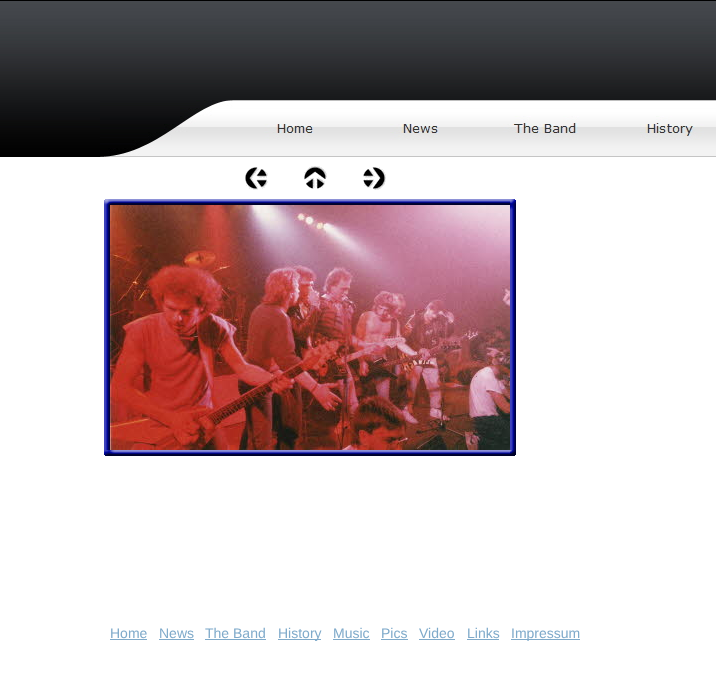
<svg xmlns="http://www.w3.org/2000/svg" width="716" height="685">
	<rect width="100%" height="100%" fill="#FFFFFF" />
	<image x="0" y="0" width="716" height="157" href="assets/img1.png" />
	<image x="100" y="100" width="133" height="57" href="assets/img2.png" />
	<image x="233" y="100" width="125" height="57" href="assets/img3.png" />
	<image x="358" y="100" width="125" height="57" href="assets/img4.png" />
	<image x="483" y="100" width="125" height="57" href="assets/img5.png" />
	<image x="608" y="100" width="108" height="57" href="assets/img6.png" />
	<image x="245" y="167" width="23" height="23" href="assets/img7.png" />
	<image x="304" y="166" width="23" height="23" href="assets/img8.png" />
	<image x="363" y="167" width="23" height="23" href="assets/img9.png" />
	<image x="104" y="199" width="6" height="6" href="assets/img10.png" />
	<image x="110" y="199" width="400" height="6" href="assets/img11.png" />
	<image x="510" y="199" width="6" height="6" href="assets/img12.png" />
	<image x="104" y="205" width="6" height="245" href="assets/img13.png" />
	<image x="110" y="205" width="400" height="245" href="assets/img14.png" />
	<image x="510" y="205" width="6" height="245" href="assets/img15.png" />
	<image x="104" y="450" width="6" height="6" href="assets/img16.png" />
	<image x="110" y="450" width="400" height="6" href="assets/img17.png" />
	<image x="510" y="450" width="6" height="6" href="assets/img18.png" />
	<text x="110" y="638" font-family="Liberation Sans" font-size="14" fill="#7FAACA">Home</text>
	<rect x="110" y="639" width="37" height="1" fill="#7FAACA" />
	<text x="159" y="638" font-family="Liberation Sans" font-size="14" fill="#7FAACA">News</text>
	<rect x="159" y="639" width="35" height="1" fill="#7FAACA" />
	<text x="205" y="638" font-family="Liberation Sans" font-size="14" fill="#7FAACA">The Band</text>
	<rect x="205" y="639" width="61" height="1" fill="#7FAACA" />
	<rect x="278" y="639" width="43" height="1" fill="#7FAACA" />
	<g font-family="Liberation Sans" font-size="14" fill="#7FAACA">
		<text x="278" y="638">History</text>
		<text x="333" y="638">Music</text>
	</g>
	<rect x="333" y="639" width="37" height="1" fill="#7FAACA" />
	<text x="381" y="638" font-family="Liberation Sans" font-size="14" fill="#7FAACA">Pics</text>
	<rect x="381" y="639" width="27" height="1" fill="#7FAACA" />
	<text x="419" y="638" font-family="Liberation Sans" font-size="14" fill="#7FAACA">Video</text>
	<rect x="419" y="639" width="36" height="1" fill="#7FAACA" />
	<text x="467" y="638" font-family="Liberation Sans" font-size="14" fill="#7FAACA">Links</text>
	<rect x="467" y="639" width="32" height="1" fill="#7FAACA" />
	<rect x="511" y="639" width="69" height="1" fill="#7FAACA" />
	<text x="511" y="638" font-family="Liberation Sans" font-size="14" fill="#7FAACA">Impressum</text>
</svg>
